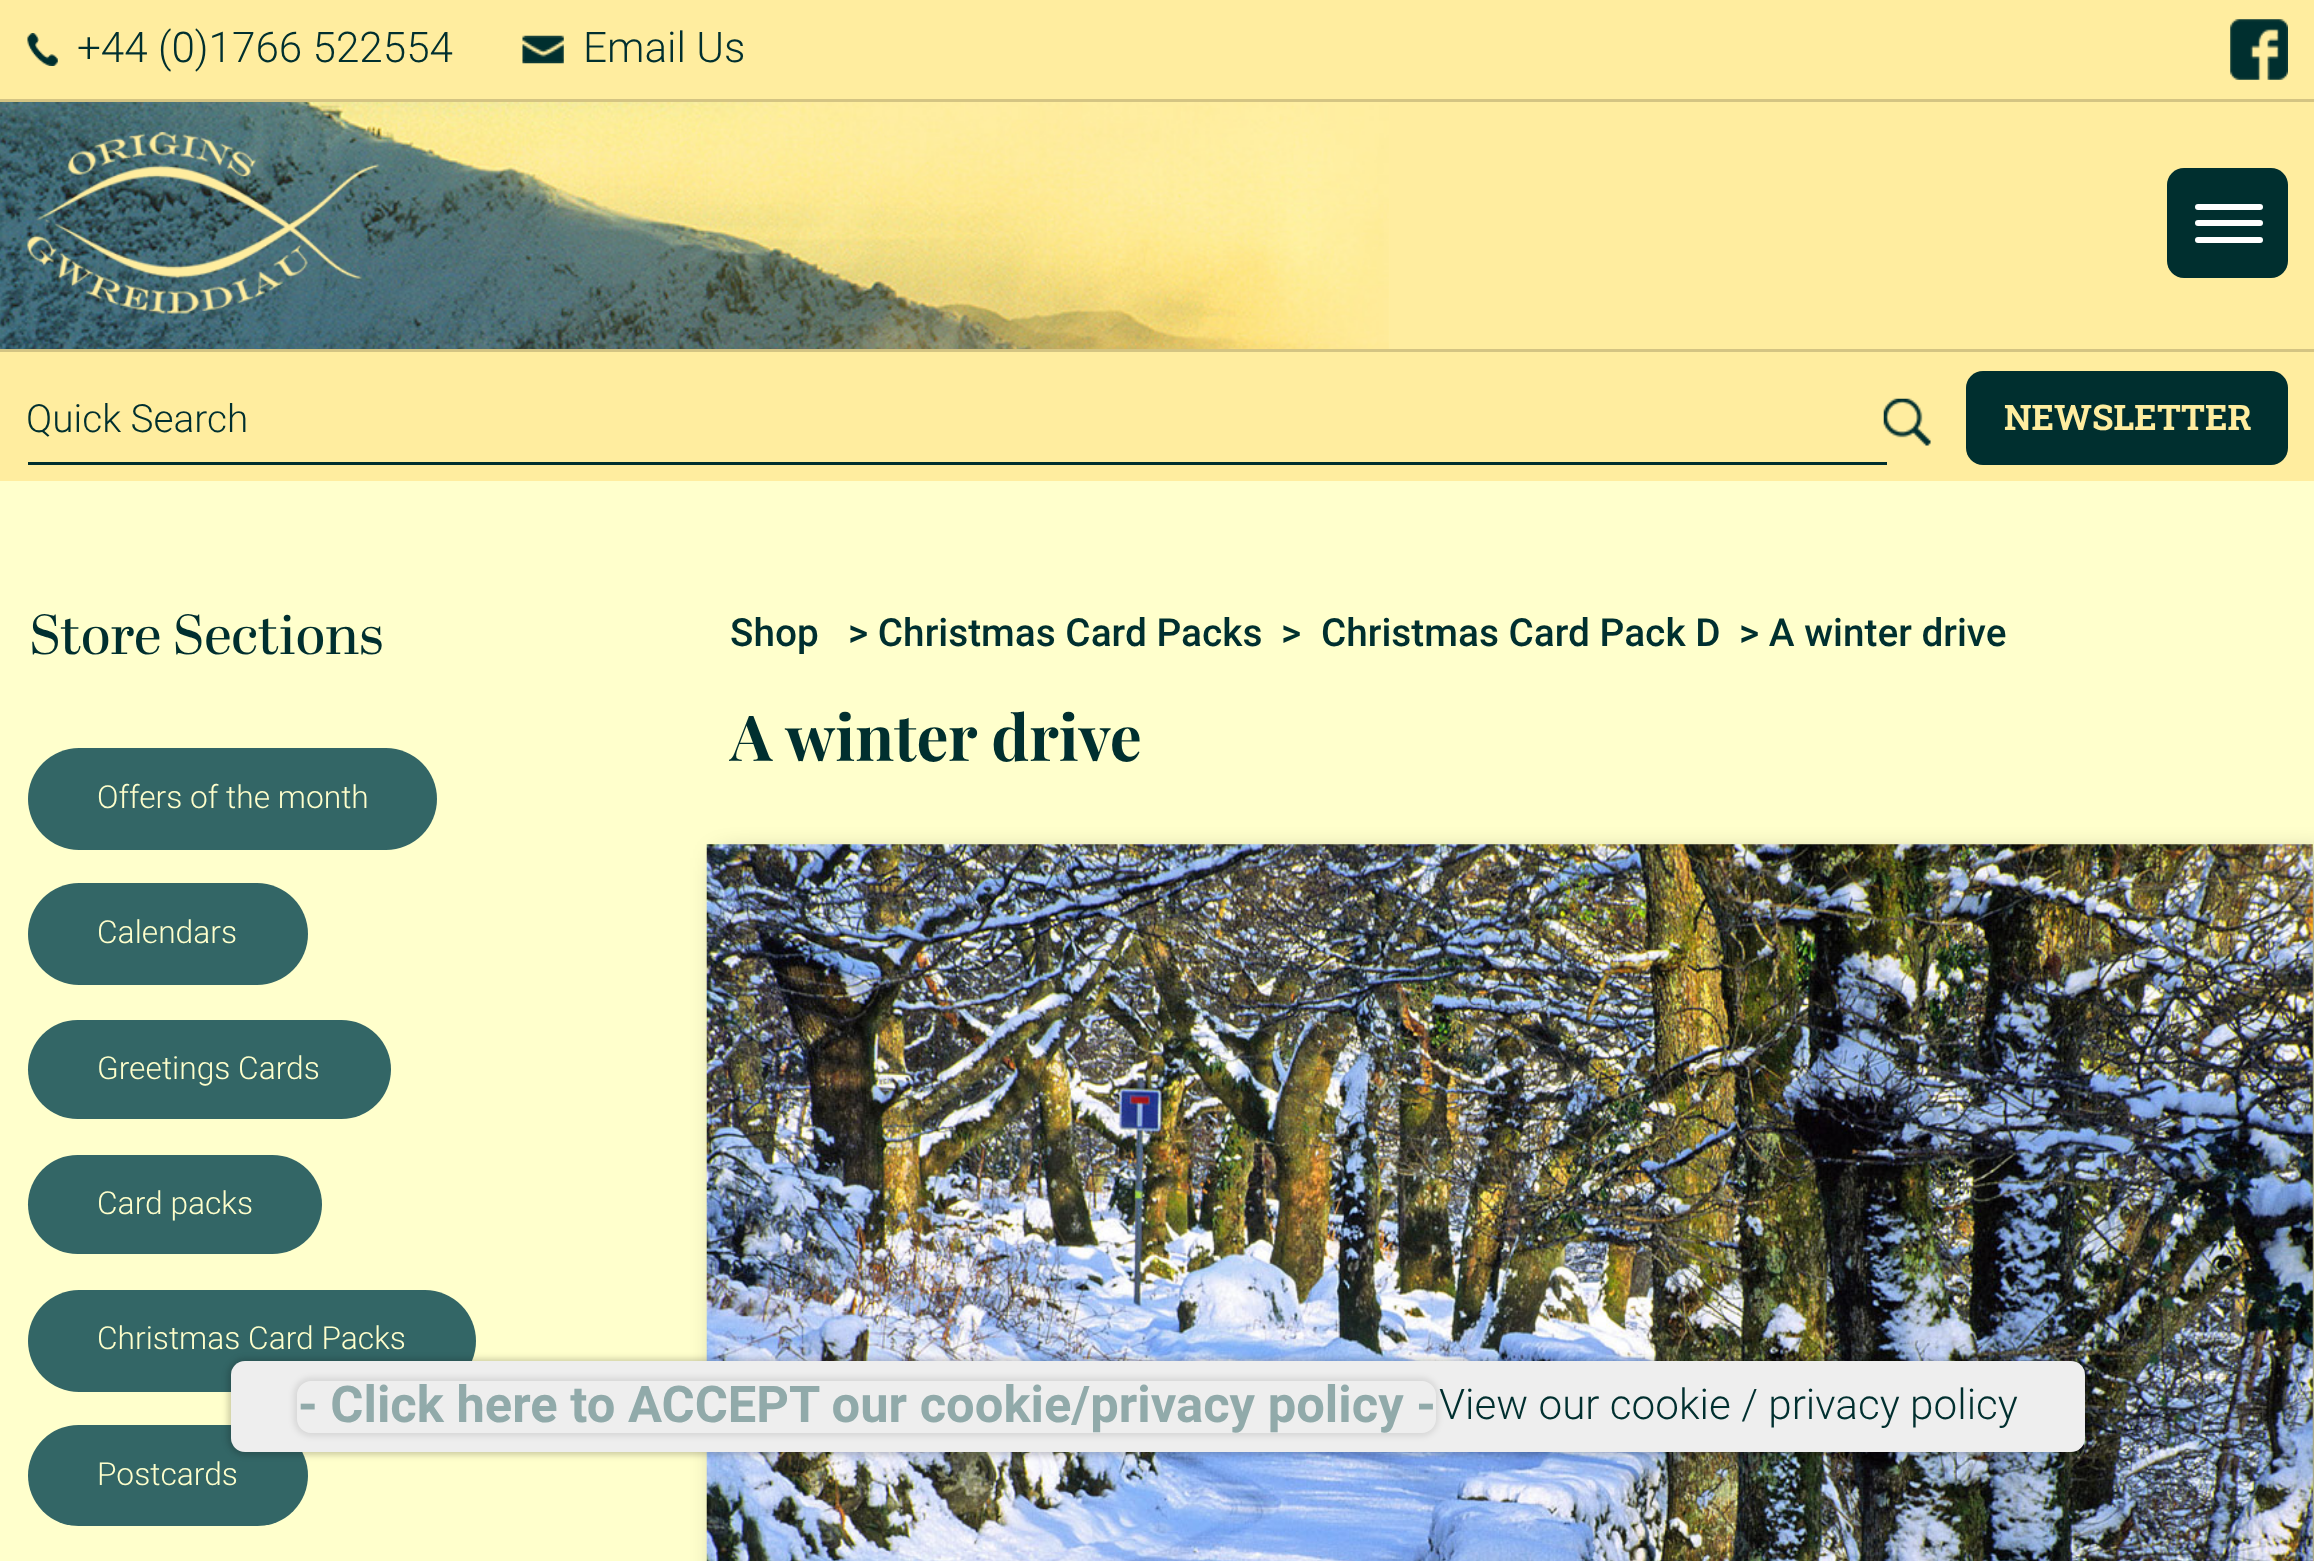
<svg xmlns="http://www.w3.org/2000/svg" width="2314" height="1561">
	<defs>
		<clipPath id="clip1"><path d="M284 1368H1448V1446H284ZM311 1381H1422C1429.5 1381 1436 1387.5 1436 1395V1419C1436 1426.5 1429.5 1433 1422 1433H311C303.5 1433 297 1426.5 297 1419V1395C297 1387.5 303.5 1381 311 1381Z" clip-rule="evenodd" /></clipPath>
	</defs>
	<rect width="100%" height="100%" fill="#FFFFCC" />
	<rect x="1388" y="102" width="926" height="247" fill="#FFED9F" />
	<image x="0" y="102" width="1389" height="247" href="assets/img1.png" />
	<rect x="0" y="0" width="2314" height="99" fill="#FFED9F" />
	<rect x="0" y="99" width="2314" height="3" fill="#D4C483" />
	<image x="27" y="33" width="31" height="33" href="assets/img2.png" />
	<text x="77" y="62" font-family="Roboto" font-size="42.25" font-weight="300" fill="#002F2F">+44 (0)1766 522554</text>
	<image x="522" y="35" width="42" height="29" href="assets/img3.png" />
	<text x="583" y="62" font-family="Roboto" font-size="42.25" font-weight="300" fill="#002F2F">Email Us</text>
	<image x="2230" y="19" width="58" height="61" href="assets/img4.png" />
	<rect x="0" y="352" width="2314" height="129" fill="#FFED9F" />
	<rect x="0" y="349" width="2314" height="3" fill="#D4C483" />
	<rect x="28" y="462" width="1859" height="3" fill="#002F2F" />
	<text x="26" y="432" font-family="Roboto" font-size="38.75" font-weight="300" fill="#002F2F">Quick Search</text>
	<image x="1883" y="398" width="48" height="48" href="assets/img5.png" />
	<rect x="1966" y="371" width="322" height="94" rx="17" fill="#002F2F" />
	<text x="2004" y="430" font-family="Roboto Slab" font-size="35.25" font-weight="700" fill="#FFED9F">NEWSLETTER</text>
	<image x="27" y="132" width="353" height="182" href="assets/img6.png" />
	<rect x="2167" y="168" width="121" height="110" rx="17" fill="#002F2F" />
	<rect x="2195" y="204" width="68" height="6" rx="3" fill="#FFFFFF" />
	<rect x="2195" y="220" width="68" height="6" rx="3" fill="#FFFFFF" />
	<rect x="2195" y="237" width="68" height="6" rx="3" fill="#FFFFFF" />
	<text x="29" y="654" font-family="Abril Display" font-size="56.25" fill="#002F2F">Store Sections</text>
	<rect x="28" y="748" width="409" height="102" rx="51" fill="#336666" />
	<text x="97" y="808" font-family="Roboto" font-size="31.75" font-weight="300" fill="#FFFFCC">Offers of the month</text>
	<rect x="28" y="883" width="280" height="102" rx="51" fill="#336666" />
	<text x="97" y="943" font-family="Roboto" font-size="31.75" font-weight="300" fill="#FFFFCC">Calendars</text>
	<rect x="28" y="1020" width="363" height="99" rx="49.5" fill="#336666" />
	<text x="97" y="1079" font-family="Roboto" font-size="31.75" font-weight="300" fill="#FFFFCC">Greetings Cards</text>
	<rect x="28" y="1155" width="294" height="99" rx="49.5" fill="#336666" />
	<text x="97" y="1214" font-family="Roboto" font-size="31.75" font-weight="300" fill="#FFFFCC">Card packs</text>
	<rect x="28" y="1290" width="448" height="102" rx="51" fill="#336666" />
	<text x="97" y="1349" font-family="Roboto" font-size="31.75" font-weight="300" fill="#FFFFCC">Christmas Card Packs</text>
	<rect x="28" y="1425" width="280" height="101" rx="50.5" fill="#336666" />
	<text x="97" y="1485" font-family="Roboto" font-size="31.75" font-weight="300" fill="#FFFFCC">Postcards</text>
	<g font-family="Roboto" font-size="38.75" font-weight="500" fill="#002F2F">
		<text x="730" y="646">Shop</text>
		<text x="848" y="646">&gt; Christmas Card Packs</text>
		<text x="1281" y="646">&gt;</text>
		<text x="1321" y="646">Christmas Card Pack D</text>
		<text x="1739" y="646">&gt; A winter drive</text>
	</g>
	<text x="730" y="761" font-family="Playfair Display" font-size="63.5" font-weight="700" fill="#002F2F">A winter drive</text>
	<rect x="721" y="858" width="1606" height="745" fill="#000000" fill-opacity="0.4" filter="blur(14px)" />
	<image x="706" y="844" width="1607" height="717" href="assets/img7.png" />
	<rect x="228" y="1359" width="1859" height="96" rx="17" fill="#000000" fill-opacity="0.2" filter="blur(3px)" />
	<rect x="231" y="1361" width="1854" height="91" rx="14" fill="#EEEEEE" />
	<g clip-path="url(#clip1)">
		<rect x="294" y="1378" width="1144" height="58" rx="17" fill="#000000" fill-opacity="0.1" filter="blur(3px)" />
	</g>
	<text x="298" y="1422" font-family="Roboto" font-size="50.7" font-weight="700" fill="#91AAAA">- Click here to ACCEPT our cookie/privacy policy -</text>
	<text x="1439" y="1419" font-family="Roboto" font-size="42.25" font-weight="300" fill="#002F2F">View our cookie / privacy policy</text>
</svg>
